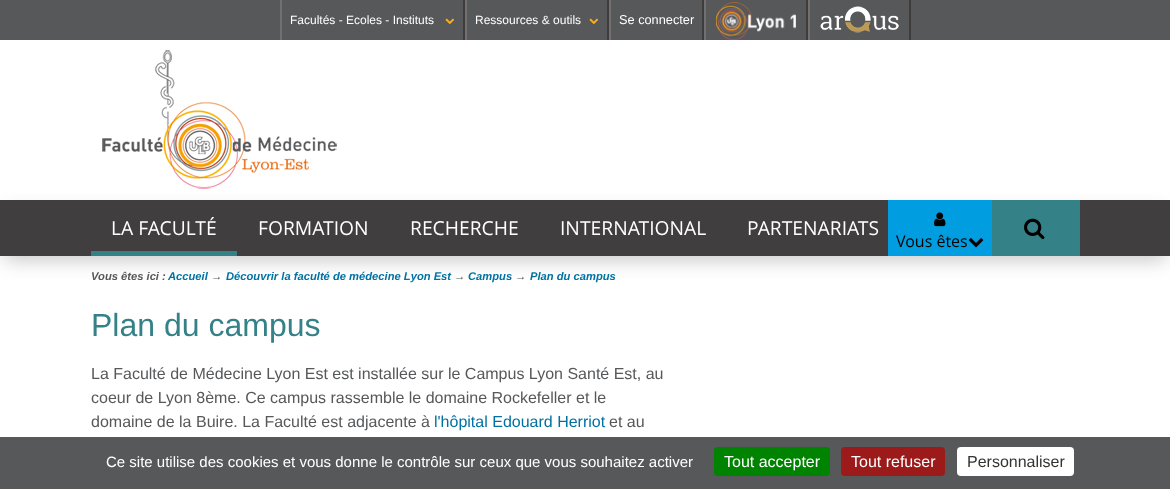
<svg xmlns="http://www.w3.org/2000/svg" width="1170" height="489">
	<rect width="100%" height="100%" fill="#FFFFFF" />
	<rect x="0" y="0" width="1170" height="40" fill="#57585A" />
	<rect x="463" y="0" width="2" height="40" fill="#3E3D3B" />
	<rect x="280" y="0" width="2" height="40" fill="#727071" />
	<text x="290" y="24" font-family="Liberation Sans" font-size="12" fill="#FFFFFF">Facultés - Ecoles - Instituts</text>
	<image x="445" y="18" width="10" height="7" href="assets/img1.png" />
	<rect x="607" y="0" width="2" height="40" fill="#3E3D3B" />
	<rect x="465" y="0" width="2" height="40" fill="#727071" />
	<text x="475" y="24" font-family="Liberation Sans" font-size="12" fill="#FFFFFF">Ressources &amp; outils</text>
	<image x="589" y="18" width="10" height="7" href="assets/img1.png" />
	<rect x="702" y="0" width="2" height="40" fill="#3E3D3B" />
	<rect x="609" y="0" width="2" height="40" fill="#727071" />
	<text x="619" y="24" font-family="Liberation Sans" font-size="12.75" fill="#FFFFFF">Se connecter</text>
	<rect x="806" y="0" width="2" height="40" fill="#3E3D3B" />
	<rect x="704" y="0" width="2" height="40" fill="#727071" />
	<image x="716" y="2" width="80" height="38" href="assets/img2.png" />
	<rect x="909" y="0" width="2" height="40" fill="#3E3D3B" />
	<rect x="808" y="0" width="2" height="40" fill="#727071" />
	<image x="820" y="6" width="79" height="27" href="assets/img3.png" />
	<rect x="4" y="212" width="1162" height="48" fill="#C7C7C7" filter="blur(9.5px)" />
	<image x="102" y="50" width="235" height="139" href="assets/img4.png" />
	<rect x="0" y="200" width="1170" height="56" fill="#403E3F" />
	<rect x="91" y="251" width="146" height="5" fill="#348188" />
	<g font-family="Open Sans" font-size="19.25" fill="#FFFFFF">
		<text x="111" y="235">LA FACULTÉ</text>
		<text x="258" y="235">FORMATION</text>
		<text x="410" y="235">RECHERCHE</text>
		<text x="560" y="235">INTERNATIONAL</text>
		<text x="747" y="235">PARTENARIATS</text>
	</g>
	<rect x="992" y="200" width="88" height="56" fill="#348188" />
	<image x="1024" y="218" width="21" height="22" href="assets/img5.png" />
	<rect x="888" y="200" width="104" height="56" fill="#009DE0" />
	<image x="934" y="212" width="12" height="15" href="assets/img6.png" />
	<text x="896" y="247" font-family="Open Sans" font-size="16" fill="#000000">Vous êtes</text>
	<image x="968" y="238" width="16" height="10" href="assets/img7.png" />
	<text x="91" y="280" font-family="Liberation Sans" font-size="11.2" font-weight="700" font-style="italic" fill="#57585A">Vous êtes ici :</text>
	<text x="168" y="280" font-family="Liberation Sans" font-size="11.2" font-weight="700" font-style="italic" fill="#0071A2">Accueil</text>
	<text x="211" y="280" font-family="Liberation Sans" font-size="11.2" font-weight="700" font-style="italic" fill="#57585A">→</text>
	<text x="226" y="280" font-family="Liberation Sans" font-size="11.2" font-weight="700" font-style="italic" fill="#0071A2">Découvrir la faculté de médecine Lyon Est</text>
	<text x="454" y="280" font-family="Liberation Sans" font-size="11.2" font-weight="700" font-style="italic" fill="#57585A">→</text>
	<text x="468" y="280" font-family="Liberation Sans" font-size="11.2" font-weight="700" font-style="italic" fill="#0071A2">Campus</text>
	<text x="515" y="280" font-family="Liberation Sans" font-size="11.2" font-weight="700" font-style="italic" fill="#57585A">→</text>
	<text x="530" y="280" font-family="Liberation Sans" font-size="11.2" font-weight="700" font-style="italic" fill="#0071A2">Plan du campus</text>
	<text x="91" y="336" font-family="Liberation Sans" font-size="32" fill="#348188">Plan du campus</text>
	<g font-family="Liberation Sans" font-size="16" fill="#57585A">
		<text x="91" y="379">La Faculté de Médecine Lyon Est est installée sur le Campus Lyon Santé Est, au</text>
		<text x="91" y="403">coeur de Lyon 8ème. Ce campus rassemble le domaine Rockefeller et le</text>
		<text x="91" y="427">domaine de la Buire. La Faculté est adjacente à</text>
	</g>
	<text x="434" y="427" font-family="Liberation Sans" font-size="16" fill="#0071A2">l'hôpital Edouard Herriot</text>
	<text x="609" y="427" font-family="Liberation Sans" font-size="16" fill="#57585A">et au</text>
	<rect x="0" y="437" width="1170" height="52" fill="#57585A" />
	<text x="106" y="467" font-family="Liberation Sans" font-size="15" fill="#FFFFFF">Ce site utilise des cookies et vous donne le contrôle sur ceux que vous souhaitez activer</text>
	<rect x="714" y="447" width="116" height="29" rx="4" fill="#008300" />
	<text x="724" y="467" font-family="Liberation Sans" font-size="16" fill="#FFFFFF">Tout accepter</text>
	<rect x="841" y="447" width="104" height="29" rx="4" fill="#9C1A1A" />
	<text x="851" y="467" font-family="Liberation Sans" font-size="16" fill="#FFFFFF">Tout refuser</text>
	<rect x="957" y="447" width="117" height="29" rx="4" fill="#FFFFFF" />
	<text x="967" y="467" font-family="Liberation Sans" font-size="16" fill="#333333">Personnaliser</text>
</svg>
